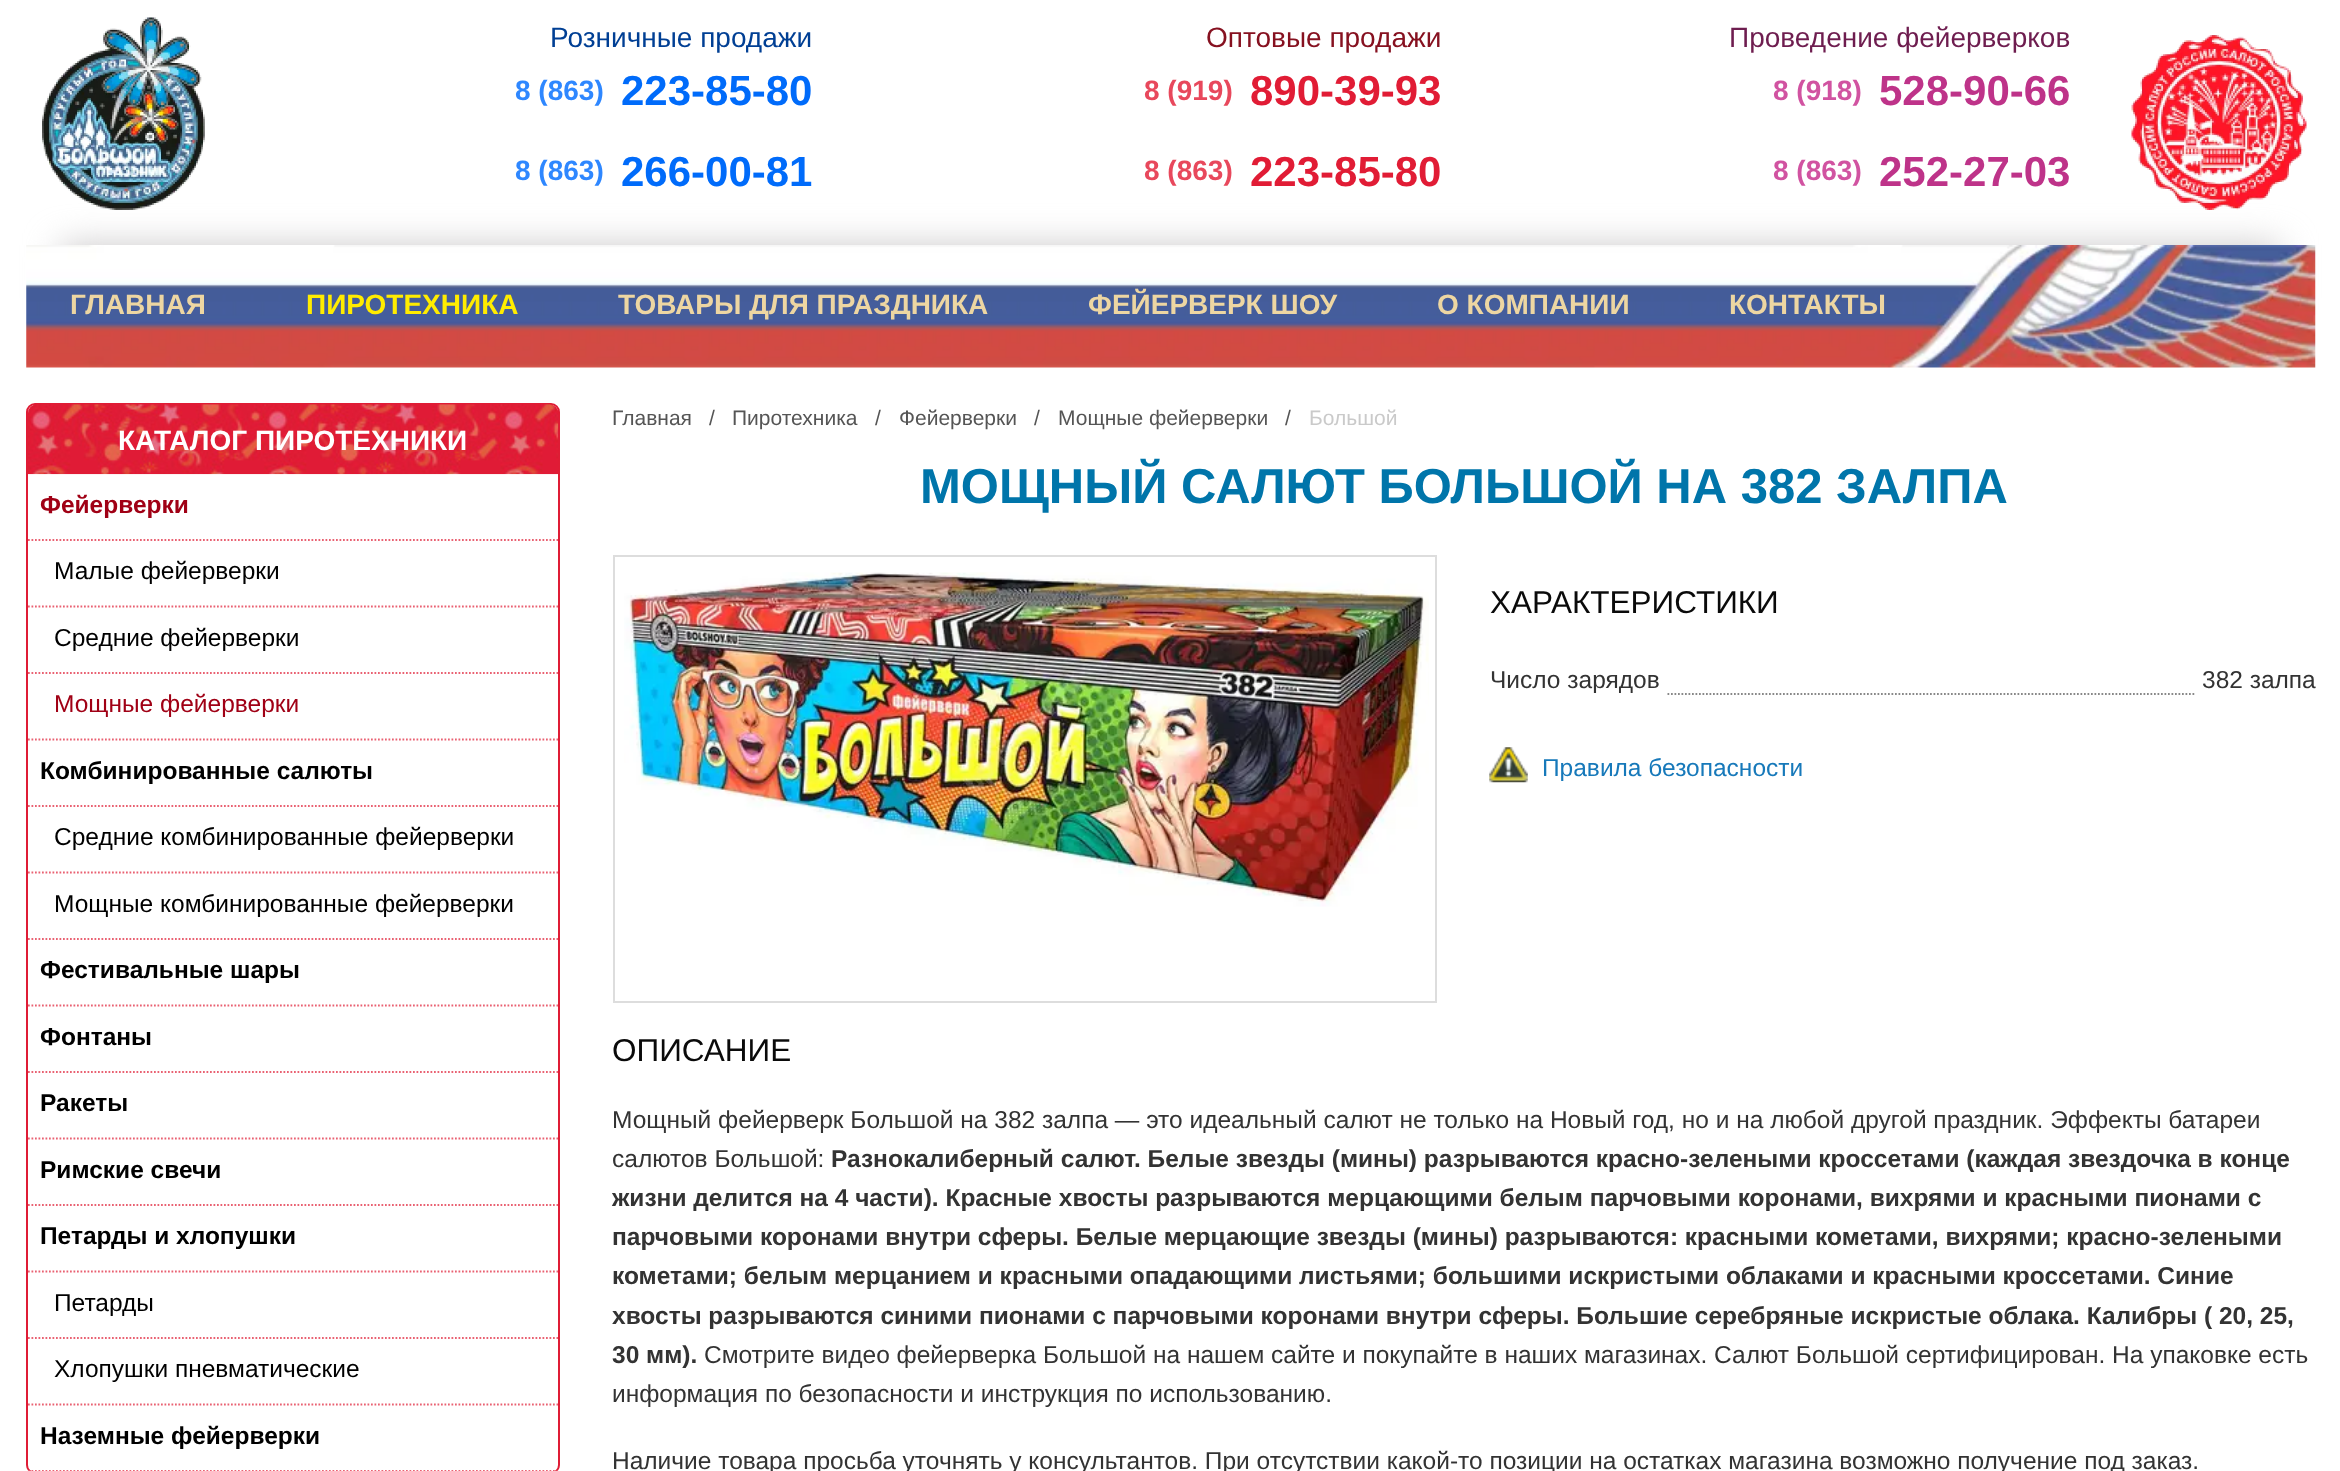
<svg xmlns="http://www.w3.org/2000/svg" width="2340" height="1471">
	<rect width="100%" height="100%" fill="#FFFFFF" />
	<image x="42" y="17" width="163" height="193" href="assets/img1.png" />
	<text x="550" y="47" font-family="Liberation Sans" font-size="28" fill="#003F94">Розничные продажи</text>
	<text x="515" y="100" font-family="Liberation Sans" font-size="28" font-weight="700" fill="#2E87FF">8 (863)</text>
	<text x="621" y="105" font-family="Liberation Sans" font-size="42" font-weight="700" fill="#006BFA">223-85-80</text>
	<text x="515" y="180" font-family="Liberation Sans" font-size="28" font-weight="700" fill="#2E87FF">8 (863)</text>
	<text x="621" y="186" font-family="Liberation Sans" font-size="42" font-weight="700" fill="#006BFA">266-00-81</text>
	<text x="1206" y="47" font-family="Liberation Sans" font-size="28" fill="#861120">Оптовые продажи</text>
	<text x="1144" y="100" font-family="Liberation Sans" font-size="28" font-weight="700" fill="#E8485C">8 (919)</text>
	<text x="1250" y="105" font-family="Liberation Sans" font-size="42" font-weight="700" fill="#E11C35">890-39-93</text>
	<text x="1144" y="180" font-family="Liberation Sans" font-size="28" font-weight="700" fill="#E8485C">8 (863)</text>
	<text x="1250" y="186" font-family="Liberation Sans" font-size="42" font-weight="700" fill="#E11C35">223-85-80</text>
	<text x="1729" y="47" font-family="Liberation Sans" font-size="28" fill="#6E1D4F">Проведение фейерверков</text>
	<text x="1773" y="100" font-family="Liberation Sans" font-size="28" font-weight="700" fill="#D153A1">8 (918)</text>
	<text x="1879" y="105" font-family="Liberation Sans" font-size="42" font-weight="700" fill="#BE3389">528-90-66</text>
	<text x="1773" y="180" font-family="Liberation Sans" font-size="28" font-weight="700" fill="#D153A1">8 (863)</text>
	<text x="1879" y="186" font-family="Liberation Sans" font-size="42" font-weight="700" fill="#BE3389">252-27-03</text>
	<image x="2131" y="35" width="176" height="175" href="assets/img2.png" />
	<rect x="61" y="245" width="2219" height="53" fill="#CBC9CA" filter="blur(17.5px)" />
	<image x="26" y="245" width="2290" height="123" href="assets/img3.png" />
	<text x="70" y="314" font-family="Liberation Sans" font-size="28" font-weight="700" fill="#EDD6A2">ГЛАВНАЯ</text>
	<text x="306" y="314" font-family="Liberation Sans" font-size="28" font-weight="700" fill="#FFEC00">ПИРОТЕХНИКА</text>
	<g font-family="Liberation Sans" font-size="28" font-weight="700" fill="#EDD6A2">
		<text x="618" y="314">ТОВАРЫ ДЛЯ ПРАЗДНИКА</text>
		<text x="1088" y="314">ФЕЙЕРВЕРК ШОУ</text>
		<text x="1437" y="314">О КОМПАНИИ</text>
		<text x="1729" y="314">КОНТАКТЫ</text>
	</g>
	<rect x="27" y="404" width="532" height="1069" rx="8" fill="none" stroke="#DF1C35" stroke-width="2" />
	<image x="28" y="404" width="531" height="71" href="assets/img4.png" />
	<text x="118" y="450" font-family="Liberation Sans" font-size="28" font-weight="700" fill="#FFFFFF">КАТАЛОГ ПИРОТЕХНИКИ</text>
	<path d="M28 540H558" fill="none" stroke="#E96172" stroke-width="1.8" stroke-dasharray="1.75 1.75" />
	<text x="40" y="513" font-family="Liberation Sans" font-size="24.5" font-weight="700" fill="#A00015">Фейерверки</text>
	<path d="M28 606.5H558" fill="none" stroke="#E96172" stroke-width="1.8" stroke-dasharray="1.75 1.75" />
	<text x="54" y="579" font-family="Liberation Sans" font-size="24.5" fill="#000000">Малые фейерверки</text>
	<path d="M28 673H558" fill="none" stroke="#E96172" stroke-width="1.8" stroke-dasharray="1.75 1.75" />
	<text x="54" y="646" font-family="Liberation Sans" font-size="24.5" fill="#000000">Средние фейерверки</text>
	<path d="M28 739.5H558" fill="none" stroke="#E96172" stroke-width="1.8" stroke-dasharray="1.75 1.75" />
	<text x="54" y="712" font-family="Liberation Sans" font-size="24.5" fill="#A00015">Мощные фейерверки</text>
	<path d="M28 806H558" fill="none" stroke="#E96172" stroke-width="1.8" stroke-dasharray="1.75 1.75" />
	<text x="40" y="779" font-family="Liberation Sans" font-size="24.5" font-weight="700" fill="#000000">Комбинированные салюты</text>
	<path d="M28 872.5H558" fill="none" stroke="#E96172" stroke-width="1.8" stroke-dasharray="1.75 1.75" />
	<text x="54" y="845" font-family="Liberation Sans" font-size="24.5" fill="#000000">Средние комбинированные фейерверки</text>
	<path d="M28 939H558" fill="none" stroke="#E96172" stroke-width="1.8" stroke-dasharray="1.75 1.75" />
	<text x="54" y="912" font-family="Liberation Sans" font-size="24.5" fill="#000000">Мощные комбинированные фейерверки</text>
	<path d="M28 1005.5H558" fill="none" stroke="#E96172" stroke-width="1.8" stroke-dasharray="1.75 1.75" />
	<text x="40" y="978" font-family="Liberation Sans" font-size="24.5" font-weight="700" fill="#000000">Фестивальные шары</text>
	<path d="M28 1072H558" fill="none" stroke="#E96172" stroke-width="1.8" stroke-dasharray="1.75 1.75" />
	<text x="40" y="1045" font-family="Liberation Sans" font-size="24.5" font-weight="700" fill="#000000">Фонтаны</text>
	<path d="M28 1138.5H558" fill="none" stroke="#E96172" stroke-width="1.8" stroke-dasharray="1.75 1.75" />
	<text x="40" y="1111" font-family="Liberation Sans" font-size="24.5" font-weight="700" fill="#000000">Ракеты</text>
	<path d="M28 1205H558" fill="none" stroke="#E96172" stroke-width="1.8" stroke-dasharray="1.75 1.75" />
	<text x="40" y="1178" font-family="Liberation Sans" font-size="24.5" font-weight="700" fill="#000000">Римские свечи</text>
	<path d="M28 1271.5H558" fill="none" stroke="#E96172" stroke-width="1.8" stroke-dasharray="1.75 1.75" />
	<text x="40" y="1244" font-family="Liberation Sans" font-size="24.5" font-weight="700" fill="#000000">Петарды и хлопушки</text>
	<path d="M28 1338H558" fill="none" stroke="#E96172" stroke-width="1.8" stroke-dasharray="1.75 1.75" />
	<text x="54" y="1311" font-family="Liberation Sans" font-size="24.5" fill="#000000">Петарды</text>
	<path d="M28 1404.5H558" fill="none" stroke="#E96172" stroke-width="1.8" stroke-dasharray="1.75 1.75" />
	<text x="54" y="1377" font-family="Liberation Sans" font-size="24.5" fill="#000000">Хлопушки пневматические</text>
	<path d="M28 1471H558" fill="none" stroke="#E96172" stroke-width="1.8" stroke-dasharray="1.75 1.75" />
	<text x="40" y="1444" font-family="Liberation Sans" font-size="24.5" font-weight="700" fill="#000000">Наземные фейерверки</text>
	<g font-family="Liberation Sans" font-size="21" fill="#555555">
		<text x="612" y="425">Главная</text>
		<text x="709" y="425">/</text>
		<text x="732" y="425">Пиротехника</text>
		<text x="875" y="425">/</text>
		<text x="899" y="425">Фейерверки</text>
		<text x="1034" y="425">/</text>
		<text x="1058" y="425">Мощные фейерверки</text>
		<text x="1285" y="425">/</text>
	</g>
	<text x="1309" y="425" font-family="Liberation Sans" font-size="21" fill="#CACACA">Большой</text>
	<text x="920" y="503" font-family="Liberation Sans" font-size="49" font-weight="700" fill="#0075AA">МОЩНЫЙ САЛЮТ БОЛЬШОЙ НА 382 ЗАЛПА</text>
	<rect x="614" y="556" width="822" height="446" fill="none" stroke="#DDDDDD" stroke-width="2" />
	<image x="624" y="572" width="805" height="335" href="assets/img5.png" />
	<text x="1490" y="613" font-family="Liberation Sans" font-size="31.5" fill="#0A0A0A">ХАРАКТЕРИСТИКИ</text>
	<path d="M1489 694H2315" fill="none" stroke="#888888" stroke-width="1.8" stroke-dasharray="1.75 1.75" />
	<rect x="1489" y="693" width="177" height="2" fill="#FFFFFF" />
	<text x="1490" y="688" font-family="Liberation Sans" font-size="24.5" fill="#333333">Число зарядов</text>
	<rect x="2196" y="693" width="118" height="2" fill="#FFFFFF" />
	<text x="2202" y="688" font-family="Liberation Sans" font-size="24.5" fill="#333333">382 залпа</text>
	<image x="1489" y="747" width="39" height="36" href="assets/img6.png" />
	<text x="1542" y="776" font-family="Liberation Sans" font-size="24.5" fill="#1779BA">Правила безопасности</text>
	<text x="612" y="1061" font-family="Liberation Sans" font-size="31.5" fill="#0A0A0A">ОПИСАНИЕ</text>
	<g font-family="Liberation Sans" font-size="24.5" fill="#333333">
		<text x="612" y="1128">Мощный фейерверк Большой на 382 залпа — это идеальный салют не только на Новый год, но и на любой другой праздник. Эффекты батареи</text>
		<text x="612" y="1167">салютов Большой:</text>
	</g>
	<g font-family="Liberation Sans" font-size="24.5" font-weight="700" fill="#333333">
		<text x="831" y="1167">Разнокалиберный салют. Белые звезды (мины) разрываются красно-зелеными кроссетами (каждая звездочка в конце</text>
		<text x="612" y="1206">жизни делится на 4 части). Красные хвосты разрываются мерцающими белым парчовыми коронами, вихрями и красными пионами с</text>
		<text x="612" y="1245">парчовыми коронами внутри сферы. Белые мерцающие звезды (мины) разрываются: красными кометами, вихрями; красно-зелеными</text>
		<text x="612" y="1284">кометами; белым мерцанием и красными опадающими листьями; большими искристыми облаками и красными кроссетами. Синие</text>
		<text x="612" y="1324">хвосты разрываются синими пионами с парчовыми коронами внутри сферы. Большие серебряные искристые облака. Калибры ( 20, 25,</text>
		<text x="612" y="1363">30 мм).</text>
	</g>
	<g font-family="Liberation Sans" font-size="24.5" fill="#333333">
		<text x="704" y="1363">Смотрите видео фейерверка Большой на нашем сайте и покупайте в наших магазинах. Салют Большой сертифицирован. На упаковке есть</text>
		<text x="612" y="1402">информация по безопасности и инструкция по использованию.</text>
		<text x="612" y="1469">Наличие товара просьба уточнять у консультантов. При отсутствии какой-то позиции на остатках магазина возможно получение под заказ.</text>
	</g>
</svg>
